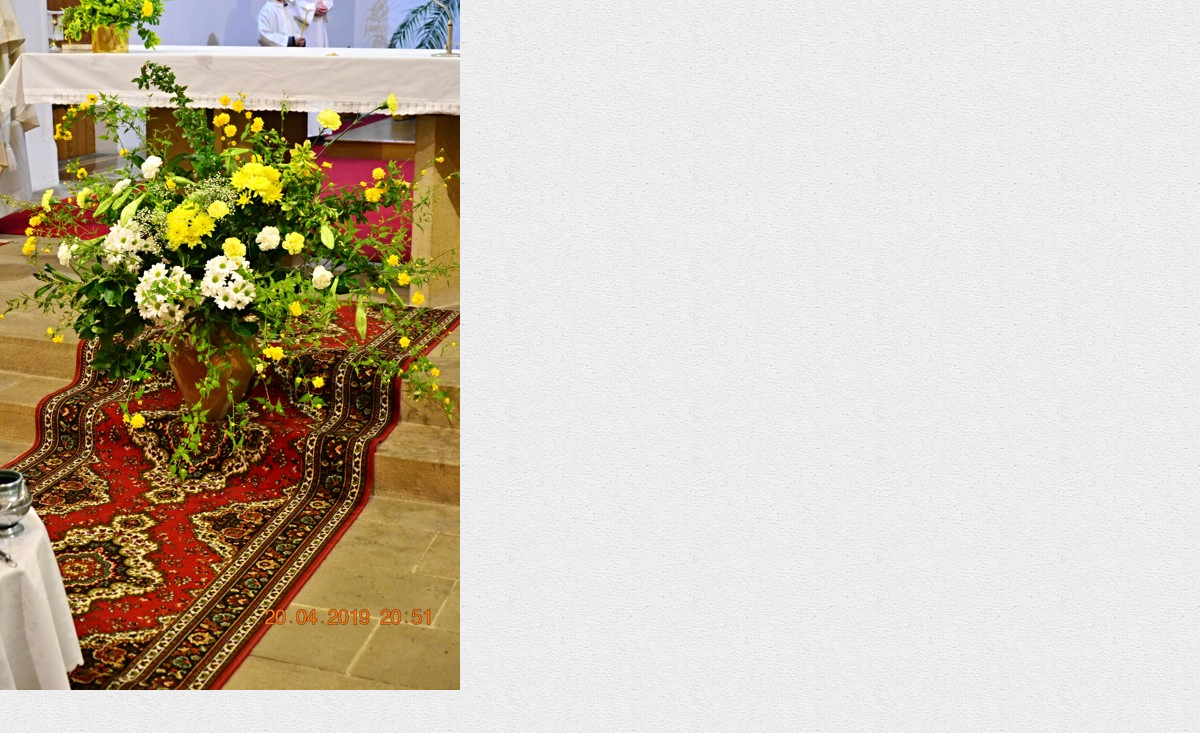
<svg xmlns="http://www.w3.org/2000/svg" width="1200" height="733">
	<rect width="100%" height="100%" fill="#FFFFFF" />
	<image x="0" y="0" width="1200" height="733" href="assets/img1.png" />
	<image x="0" y="0" width="460" height="690" href="assets/img2.png" />
</svg>
